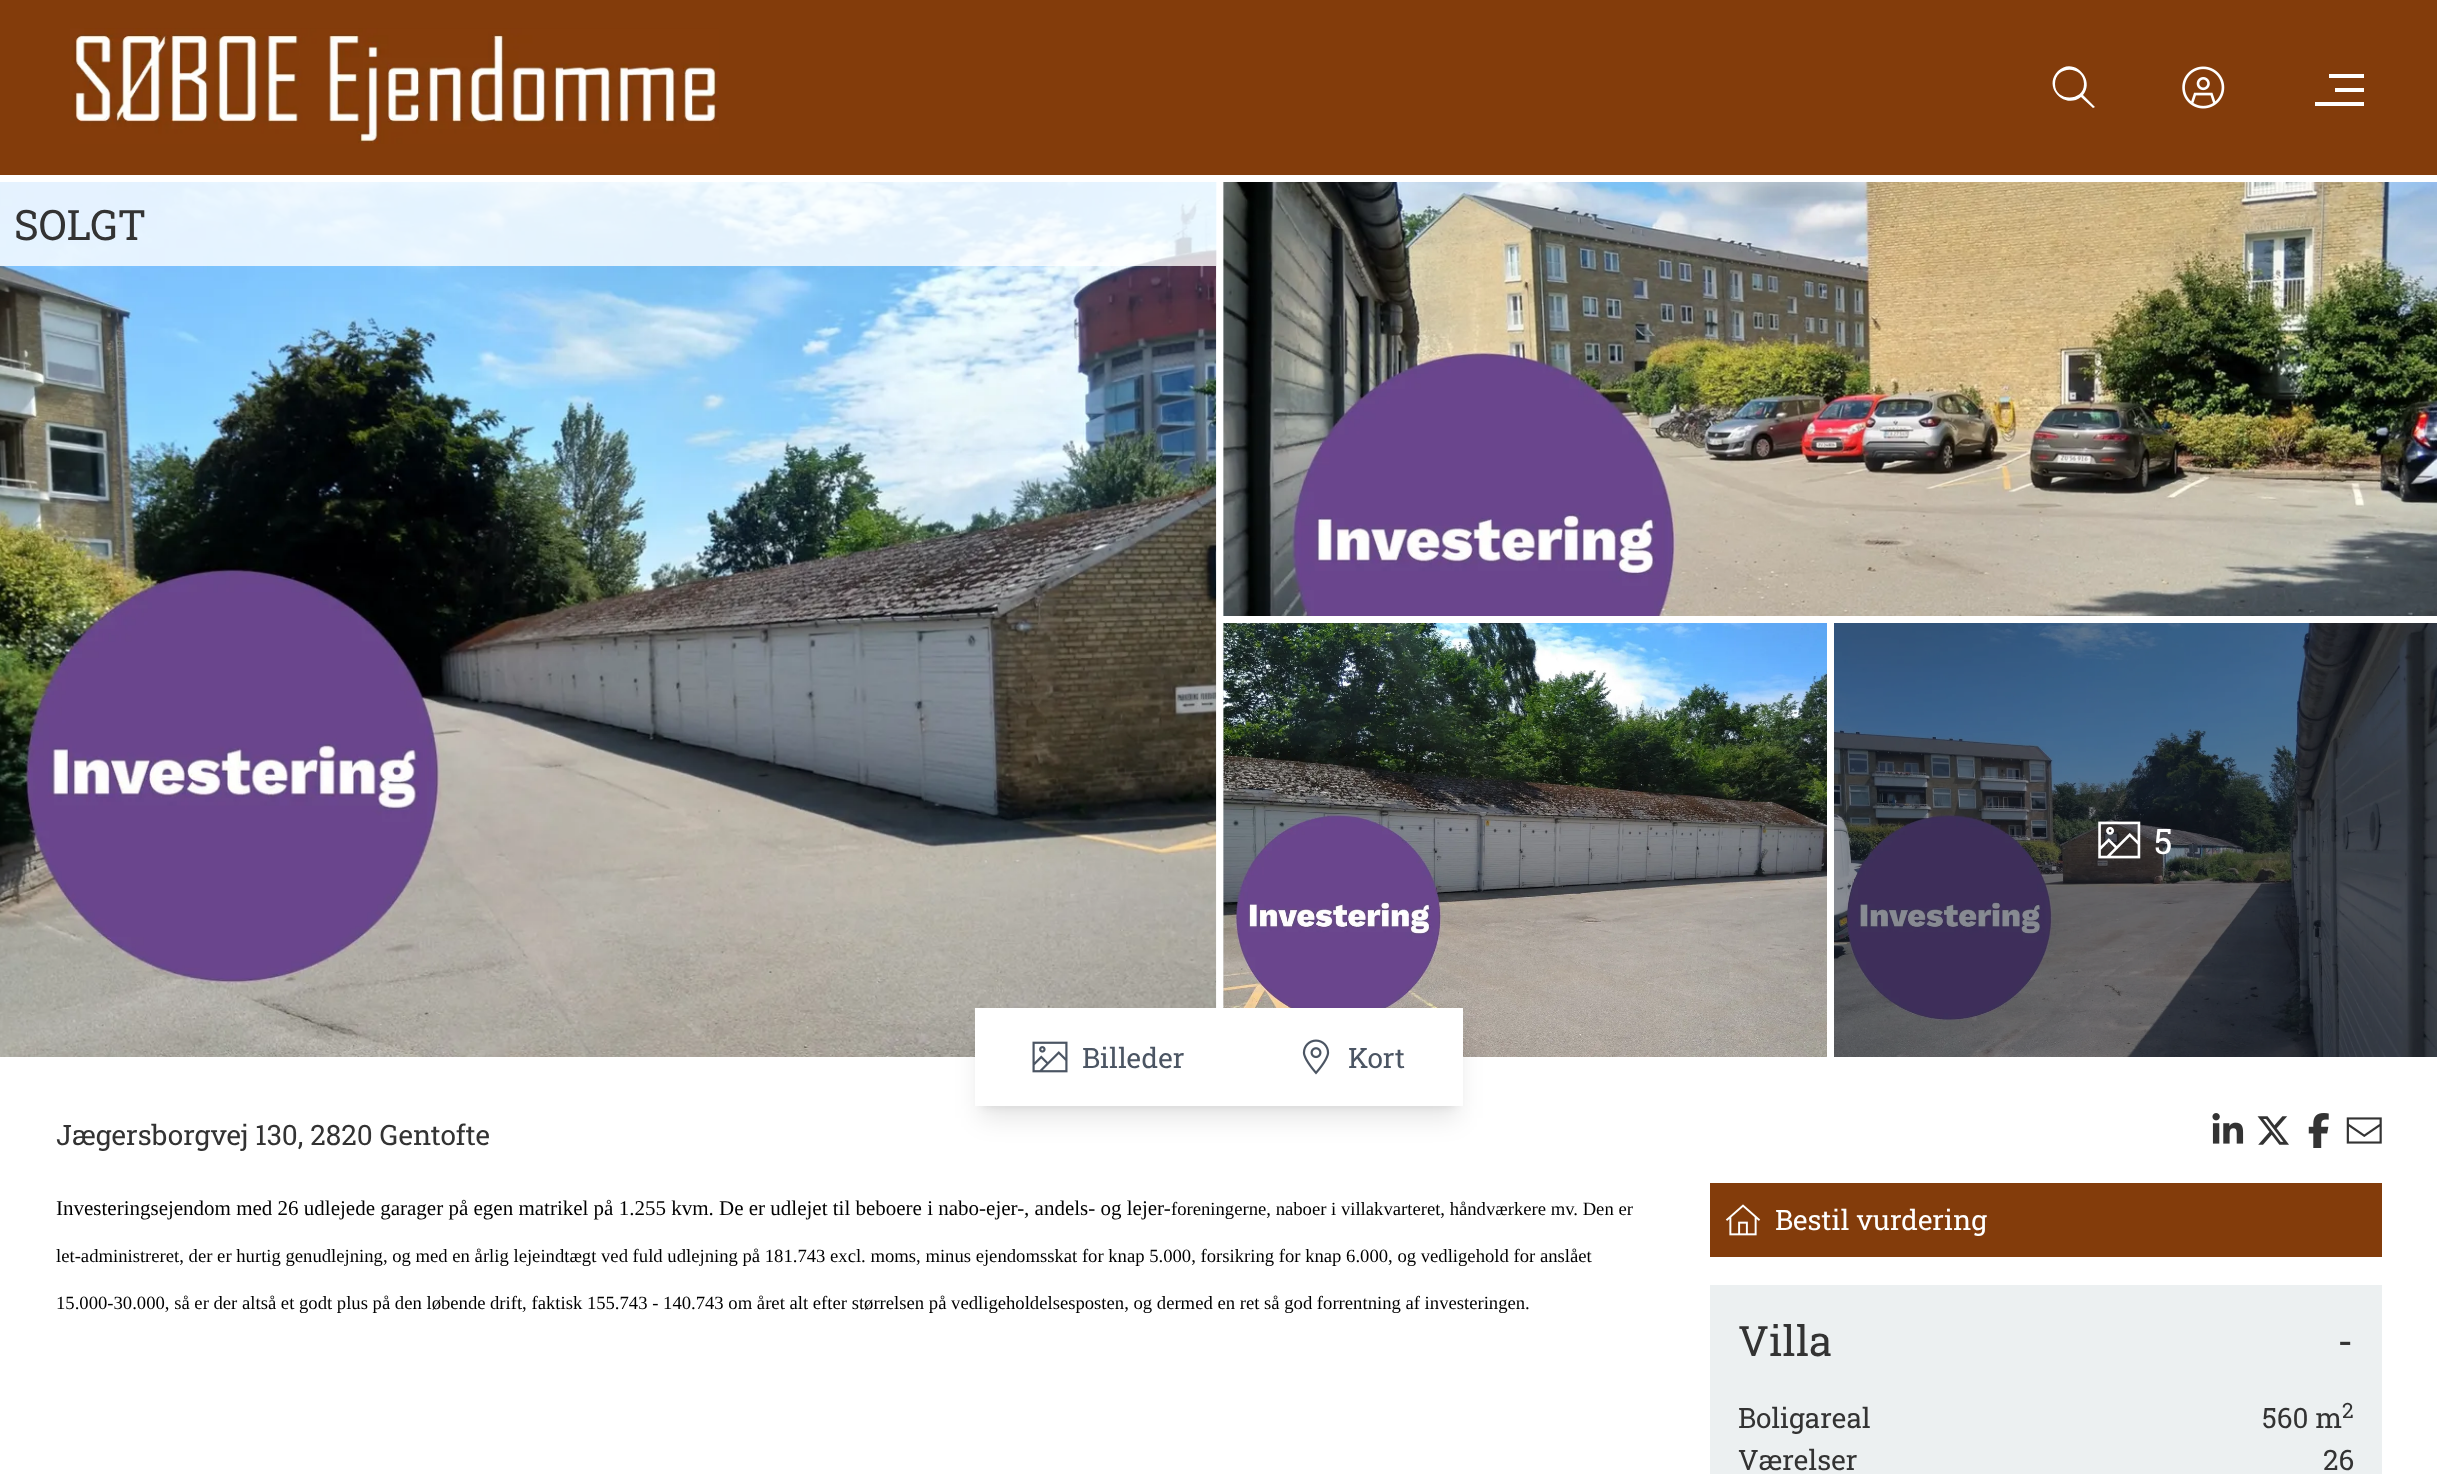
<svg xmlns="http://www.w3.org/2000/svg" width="2437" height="1474">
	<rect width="100%" height="100%" fill="#FFFFFF" />
	<rect x="0" y="0" width="2437" height="175" fill="#833C0B" />
	<image x="70" y="28" width="649" height="116" href="assets/img1.png" />
	<path d="M2084 84C2084 65 2055 65 2055 84C2055 102 2084 102 2084 84ZM2081 97C2065 110 2042 87 2058 71C2073 56 2096 79 2083 95L2095 107L2093 108Z" fill="#FFFFFF" />
	<image x="2182" y="66" width="43" height="43" href="assets/img2.png" />
	<rect x="2329" y="74" width="35" height="4" fill="#FFFFFF" />
	<rect x="2335" y="88" width="29" height="4" fill="#FFFFFF" />
	<rect x="2315" y="102" width="49" height="4" fill="#FFFFFF" />
	<image x="0" y="182" width="1217" height="875" href="assets/img3.png" />
	<rect x="0" y="182" width="1216" height="84" fill="#FFFFFF" fill-opacity="0.8" />
	<text x="14" y="240" font-family="Roboto Slab" font-size="42" fill="#333333">SOLGT</text>
	<rect x="1223" y="182" width="1" height="434" fill="#E5E7EB" />
	<image x="1223" y="182" width="1214" height="434" href="assets/img4.png" />
	<rect x="1223" y="623" width="1" height="385" fill="#E5E7EB" />
	<image x="1223" y="623" width="604" height="434" href="assets/img5.png" />
	<image x="1834" y="623" width="603" height="434" href="assets/img6.png" />
	<image x="2098" y="821" width="43" height="38" href="assets/img7.png" />
	<text x="2154" y="854" font-family="Roboto Slab" font-size="35" fill="#FFFFFF">5</text>
	<rect x="982" y="1022" width="474" height="84" fill="#000000" fill-opacity="0.1" filter="blur(5px)" />
	<rect x="980" y="1031" width="478" height="87" fill="#000000" fill-opacity="0.1" filter="blur(13px)" />
	<rect x="975" y="1008" width="488" height="98" fill="#FFFFFF" />
	<image x="1032" y="1041" width="36" height="32" href="assets/img8.png" />
	<text x="1082" y="1068" font-family="Roboto Slab" font-size="28" fill="#4B5563">Billeder</text>
	<image x="1302" y="1039" width="28" height="36" href="assets/img9.png" />
	<text x="1348" y="1068" font-family="Roboto Slab" font-size="28" fill="#4B5563">Kort</text>
	<text x="56" y="1145" font-family="Roboto Slab" font-size="28" fill="#333333">Jægersborgvej 130, 2820 Gentofte</text>
	<image x="2212" y="1113" width="32" height="31" href="assets/img10.png" />
	<image x="2257" y="1116" width="32" height="29" href="assets/img11.png" />
	<image x="2308" y="1113" width="21" height="35" href="assets/img12.png" />
	<image x="2346" y="1117" width="36" height="27" href="assets/img13.png" />
	<text x="56" y="1215" font-family="Liberation Serif" font-size="21" fill="#010101">Investeringsejendom med 26 udlejede garager på egen matrikel på 1.255 kvm. De er udlejet til beboere i nabo-ejer-, andels- og lejer-</text>
	<g font-family="Liberation Serif" font-size="18.67" fill="#010101">
		<text x="1171" y="1215">foreningerne, naboer i villakvarteret, håndværkere mv. Den er</text>
		<text x="56" y="1262">let-administreret, der er hurtig genudlejning, og med en årlig lejeindtægt ved fuld udlejning på 181.743 excl. moms, minus ejendomsskat for knap 5.000, forsikring for knap 6.000, og vedligehold for anslået</text>
		<text x="56" y="1309">15.000-30.000, så er der altså et godt plus på den løbende</text>
		<text x="490" y="1309">drift, faktisk 155.743 - 140.743 om året alt efter størrelsen på vedligeholdelsesposten, og dermed en ret så god forrentning af investeringen.</text>
	</g>
	<rect x="1710" y="1183" width="672" height="74" fill="#833C0B" />
	<image x="1725" y="1204" width="36" height="32" href="assets/img14.png" />
	<text x="1775" y="1230" font-family="Roboto Slab" font-size="28" fill="#FFFFFF">Bestil vurdering</text>
	<rect x="1710" y="1285" width="672" height="189" fill="#ECF0F1" />
	<g font-family="Roboto Slab" font-size="42" fill="#333333">
		<text x="1738" y="1356">Villa</text>
		<text x="2337" y="1356">-</text>
	</g>
	<g font-family="Roboto Slab" font-size="28" fill="#333333">
		<text x="1738" y="1428">Boligareal</text>
		<text x="2262" y="1428">560 m</text>
	</g>
	<text x="2342" y="1418" font-family="Roboto Slab" font-size="21" fill="#333333">2</text>
	<g font-family="Roboto Slab" font-size="28" fill="#333333">
		<text x="1738" y="1470">Værelser</text>
		<text x="2323" y="1470">26</text>
	</g>
</svg>
